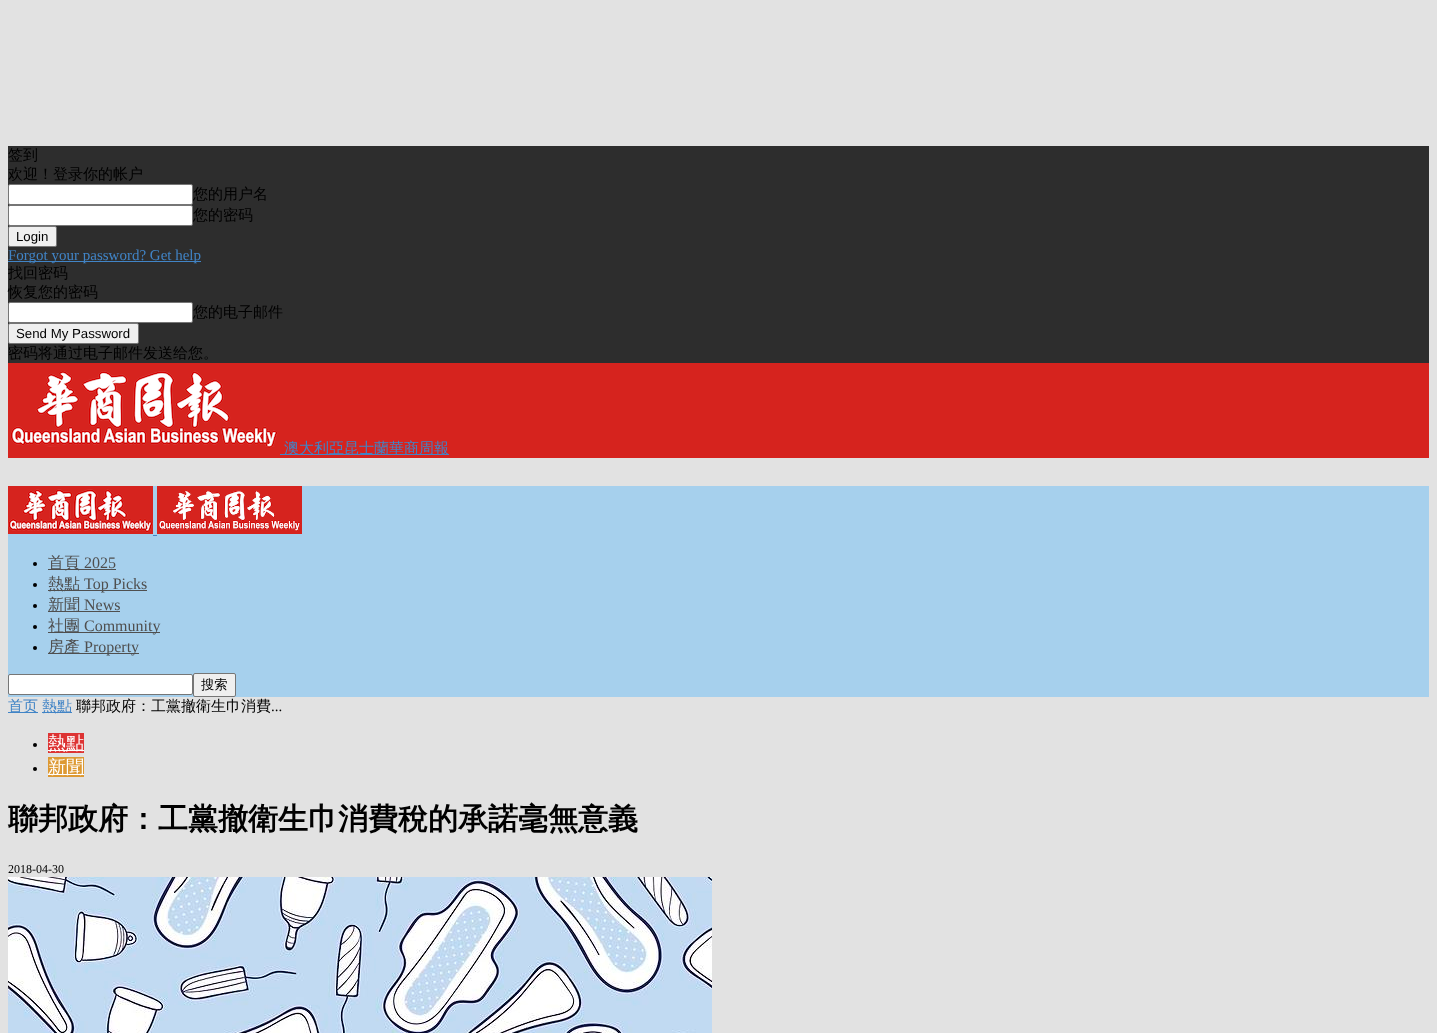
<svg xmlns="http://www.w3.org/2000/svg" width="1437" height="1033">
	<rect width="100%" height="100%" fill="#E2E2E2" />
	<rect x="8" y="146" width="1421" height="217" fill="#2D2D2D" />
	<g font-family="WenQuanYi Zen Hei" font-size="15" font-weight="500" fill="#000000">
		<text x="8" y="160">签到</text>
		<text x="8" y="179">欢迎！登录你的帐户</text>
	</g>
	<rect x="8.5" y="184.5" width="184" height="20" rx="1.5" fill="#FFFFFF" stroke="#767676" />
	<text x="193" y="199" font-family="WenQuanYi Zen Hei" font-size="15" font-weight="500" fill="#000000">您的用户名</text>
	<rect x="8.5" y="205.5" width="184" height="20" rx="1.5" fill="#FFFFFF" stroke="#767676" />
	<text x="193" y="220" font-family="WenQuanYi Zen Hei" font-size="15" font-weight="500" fill="#000000">您的密码</text>
	<rect x="8.5" y="226.5" width="48" height="20" rx="1.5" fill="#EFEFEF" stroke="#767676" />
	<text x="16" y="241" font-family="Liberation Sans" font-size="13.25" fill="#000000">Login</text>
	<rect x="8" y="261" width="193" height="1" fill="#4184C6" />
	<text x="8" y="260" font-family="Liberation Serif" font-size="15" fill="#4184C6">Forgot your password? Get help</text>
	<g font-family="WenQuanYi Zen Hei" font-size="15" font-weight="500" fill="#000000">
		<text x="8" y="278">找回密码</text>
		<text x="8" y="297">恢复您的密码</text>
	</g>
	<rect x="8.5" y="302.5" width="184" height="20" rx="1.5" fill="#FFFFFF" stroke="#767676" />
	<text x="193" y="317" font-family="WenQuanYi Zen Hei" font-size="15" font-weight="500" fill="#000000">您的电子邮件</text>
	<rect x="8.5" y="323.5" width="130" height="20" rx="1.5" fill="#EFEFEF" stroke="#767676" />
	<text x="16" y="338" font-family="Liberation Sans" font-size="13.25" fill="#000000">Send My Password</text>
	<text x="8" y="358" font-family="WenQuanYi Zen Hei" font-size="15" font-weight="500" fill="#000000">密码将通过电子邮件发送给您。</text>
	<rect x="8" y="363" width="1421" height="95" fill="#D6231E" />
	<image x="10" y="371" width="268" height="77" href="assets/img1.png" />
	<rect x="280" y="454" width="169" height="1" fill="#4184C6" />
	<text x="284" y="453" font-family="WenQuanYi Zen Hei" font-size="15" font-weight="500" fill="#4184C6">澳大利亞昆士蘭華商周報</text>
	<rect x="8" y="486" width="1421" height="211" fill="#A6D0ED" />
	<image x="8" y="486" width="145" height="48" href="assets/img2.png" />
	<image x="157" y="486" width="145" height="48" href="assets/img3.png" />
	<rect x="153" y="535" width="4" height="1" fill="#4184C6" />
	<circle cx="35" cy="564" r="2" fill="#000000" />
	<rect x="48" y="569" width="68" height="1" fill="#4F4F4F" />
	<text x="48" y="568" font-family="WenQuanYi Zen Hei" font-size="16" font-weight="500" fill="#4F4F4F">首頁</text>
	<text x="84" y="568" font-family="Liberation Serif" font-size="16" fill="#4F4F4F">2025</text>
	<circle cx="35" cy="585" r="2" fill="#000000" />
	<rect x="48" y="590" width="99" height="1" fill="#4F4F4F" />
	<text x="48" y="589" font-family="WenQuanYi Zen Hei" font-size="16" font-weight="500" fill="#4F4F4F">熱點</text>
	<text x="84" y="589" font-family="Liberation Serif" font-size="16" fill="#4F4F4F">Top Picks</text>
	<circle cx="35" cy="606" r="2" fill="#000000" />
	<rect x="48" y="611" width="72" height="1" fill="#4F4F4F" />
	<text x="48" y="610" font-family="WenQuanYi Zen Hei" font-size="16" font-weight="500" fill="#4F4F4F">新聞</text>
	<text x="84" y="610" font-family="Liberation Serif" font-size="16" fill="#4F4F4F">News</text>
	<circle cx="35" cy="627" r="2" fill="#000000" />
	<rect x="48" y="632" width="112" height="1" fill="#4F4F4F" />
	<text x="48" y="631" font-family="WenQuanYi Zen Hei" font-size="16" font-weight="500" fill="#4F4F4F">社團</text>
	<text x="84" y="631" font-family="Liberation Serif" font-size="16" fill="#4F4F4F">Community</text>
	<circle cx="35" cy="648" r="2" fill="#000000" />
	<rect x="48" y="653" width="91" height="1" fill="#4F4F4F" />
	<text x="48" y="652" font-family="WenQuanYi Zen Hei" font-size="16" font-weight="500" fill="#4F4F4F">房產</text>
	<text x="84" y="652" font-family="Liberation Serif" font-size="16" fill="#4F4F4F">Property</text>
	<rect x="8.5" y="674.5" width="184" height="20" rx="1.5" fill="#FFFFFF" stroke="#767676" />
	<rect x="193.5" y="673.5" width="42" height="23" rx="1.5" fill="#EFEFEF" stroke="#767676" />
	<text x="201" y="689" font-family="WenQuanYi Zen Hei" font-size="13.25" font-weight="500" fill="#000000">搜索</text>
	<rect x="8" y="712" width="30" height="1" fill="#4184C6" />
	<text x="8" y="711" font-family="WenQuanYi Zen Hei" font-size="15" font-weight="500" fill="#4184C6">首页</text>
	<rect x="42" y="712" width="30" height="1" fill="#4184C6" />
	<text x="42" y="711" font-family="WenQuanYi Zen Hei" font-size="15" font-weight="500" fill="#4184C6">熱點</text>
	<text x="76" y="711" font-family="WenQuanYi Zen Hei" font-size="15" font-weight="500" fill="#000000">聯邦政府：工黨撤衛生巾消費</text>
	<text x="271" y="711" font-family="Liberation Serif" font-size="15" fill="#000000">...</text>
	<circle cx="35" cy="745" r="2" fill="#000000" />
	<rect x="48" y="733" width="36" height="20" fill="#DD3333" />
	<rect x="48" y="750" width="36" height="1" fill="#FFFFFF" />
	<text x="48" y="749" font-family="WenQuanYi Zen Hei" font-size="18" font-weight="500" fill="#FFFFFF">熱點</text>
	<circle cx="35" cy="769" r="2" fill="#000000" />
	<rect x="48" y="757" width="36" height="20" fill="#DD9933" />
	<rect x="48" y="774" width="36" height="1" fill="#FFFFFF" />
	<text x="48" y="773" font-family="WenQuanYi Zen Hei" font-size="18" font-weight="500" fill="#FFFFFF">新聞</text>
	<text x="8" y="829" font-family="WenQuanYi Zen Hei" font-size="30" font-weight="700" fill="#000000">聯邦政府：工黨撤衛生巾消費稅的承諾毫無意義</text>
	<text x="8" y="873" font-family="Liberation Serif" font-size="12" fill="#000000">2018-04-30</text>
	<image x="8" y="877" width="704" height="156" href="assets/img4.png" />
</svg>
